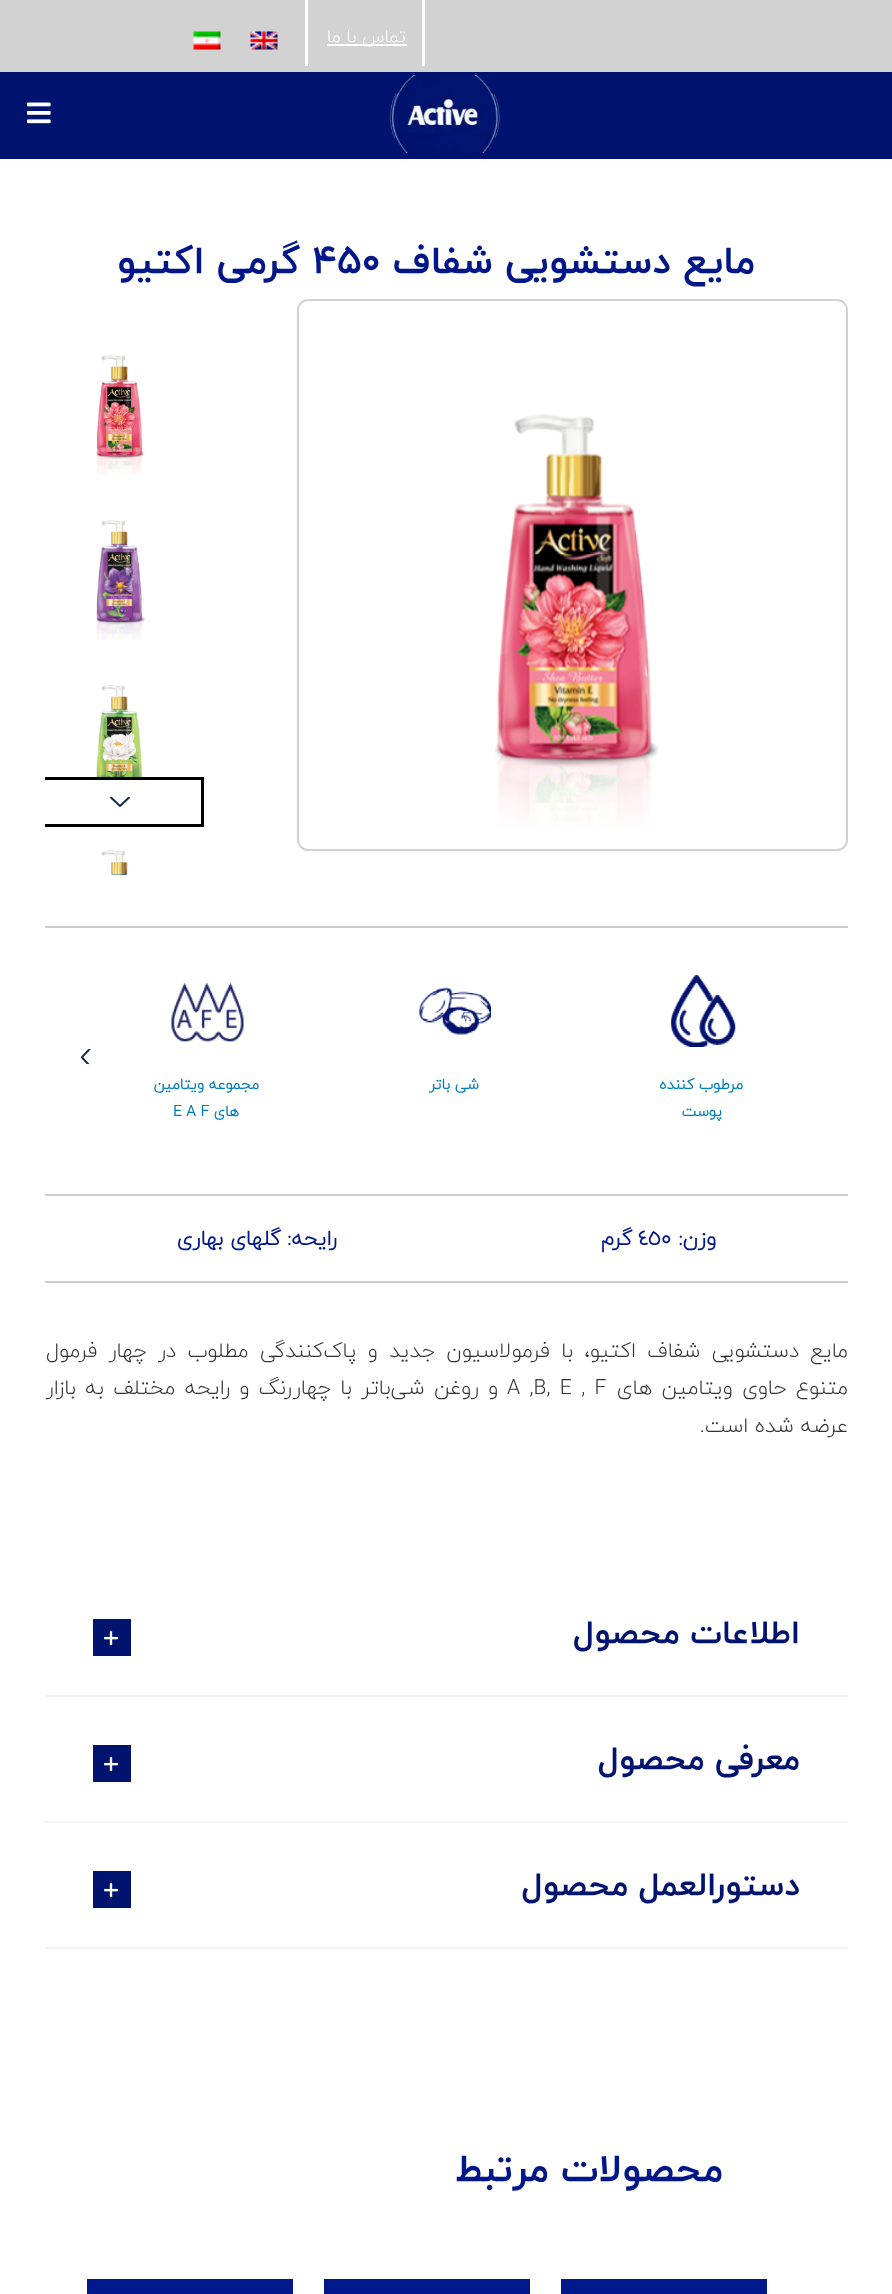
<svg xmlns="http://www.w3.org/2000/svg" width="892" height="2294">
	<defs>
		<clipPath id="clip1"><rect x="45" y="222" width="803" height="1757" /></clipPath>
	</defs>
	<rect width="100%" height="100%" fill="#FFFFFF" />
	<rect x="0" y="0" width="892" height="72" fill="#D2D2D2" />
	<rect x="422" y="0" width="3" height="66" fill="#FFFFFF" />
	<rect x="305" y="0" width="3" height="66" fill="#FFFFFF" />
	<rect x="327" y="44" width="80" height="2" fill="#FFFFFF" />
	<text x="406" y="42" font-family="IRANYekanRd" font-size="18" font-weight="300" direction="rtl" fill="#FFFFFF">تماس با ما</text>
	<image x="250" y="31" width="28" height="19" href="assets/img1.png" />
	<image x="193" y="31" width="28" height="19" href="assets/img2.png" />
	<rect x="0" y="72" width="892" height="87" fill="#00136F" />
	<image x="390" y="75" width="110" height="78" href="assets/img3.png" />
	<image x="27" y="102" width="24" height="22" href="assets/img4.png" />
	<text x="755" y="273" font-family="'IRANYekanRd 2'" font-size="39" font-weight="700" direction="rtl" fill="#001689">مایع دستشویی شفاف</text>
	<text x="313" y="273" font-family="'IRANYekanRd 2'" font-size="39" font-weight="700" fill="#001689">۴۵۰</text>
	<text x="300" y="273" font-family="'IRANYekanRd 2'" font-size="39" font-weight="700" direction="rtl" fill="#001689">گرمی اکتیو</text>
	<rect x="298" y="300" width="549" height="550" rx="10" fill="none" stroke="#D2D2D2" stroke-width="2" />
	<image x="494" y="414" width="165" height="412" href="assets/img5.png" />
	<image x="96" y="355" width="49" height="121" href="assets/img6.png" />
	<image x="96" y="520" width="49" height="120" href="assets/img7.png" />
	<image x="96" y="685" width="47" height="92" href="assets/img8.png" />
	<image x="101" y="850" width="27" height="25" href="assets/img9.png" />
	<image x="110" y="797" width="21" height="10" href="assets/img10.png" />
	<g clip-path="url(#clip1)">
		<rect x="37.5" y="778.5" width="165" height="47" fill="none" stroke="#000000" stroke-width="3" />
	</g>
	<rect x="45" y="926" width="803" height="2" fill="#CCCBCC" />
	<rect x="45" y="1194" width="803" height="2" fill="#CCCBCC" />
	<image x="81" y="1049" width="10" height="16" href="assets/img11.png" />
	<image x="671" y="975" width="65" height="72" href="assets/img12.png" />
	<g font-family="IRANYekanRd" font-size="15" font-weight="700" direction="rtl" fill="#007DBB">
		<text x="743" y="1089">مرطوب کننده</text>
		<text x="722" y="1116">پوست</text>
	</g>
	<image x="419" y="987" width="72" height="48" href="assets/img13.png" />
	<text x="479" y="1089" font-family="IRANYekanRd" font-size="15" font-weight="700" direction="rtl" fill="#007DBB">شی باتر</text>
	<image x="171" y="983" width="73" height="59" href="assets/img14.png" />
	<g font-family="IRANYekanRd" font-size="15" font-weight="700" direction="rtl" fill="#007DBB">
		<text x="259" y="1089">مجموعه ویتامین</text>
		<text x="239" y="1116">های</text>
	</g>
	<text x="173" y="1116" font-family="IRANYekanRd" font-size="15" font-weight="700" fill="#007DBB">E A F</text>
	<rect x="45" y="1281" width="803" height="2" fill="#CCCBCC" />
	<text x="716" y="1245" font-family="IRANYekanRd" font-size="21" font-weight="700" direction="rtl" fill="#001689">وزن:</text>
	<text x="638" y="1245" font-family="IRANYekanRd" font-size="21" font-weight="700" fill="#001689">450</text>
	<g font-family="IRANYekanRd" font-size="21" font-weight="700" direction="rtl" fill="#001689">
		<text x="632" y="1245">گرم</text>
		<text x="337" y="1245">رایحه: گلهای بهاری</text>
	</g>
	<g font-family="IRANYekanRd" font-size="21" font-weight="300" direction="rtl" fill="#333333">
		<text x="848" y="1357" word-spacing="4.75">مایع دستشویی شفاف اکتیو، با فرمولاسیون جدید و پاک‌کنندگی مطلوب در چهار فرمول</text>
		<text x="848" y="1394" word-spacing="2.75">متنوع حاوی ویتامین های</text>
	</g>
	<text x="507" y="1394" word-spacing="2.75" font-family="IRANYekanRd" font-size="21" font-weight="300" fill="#333333">A ,B, E , F</text>
	<g font-family="IRANYekanRd" font-size="21" font-weight="300" direction="rtl" fill="#333333">
		<text x="498" y="1394" word-spacing="2.75">و روغن شی‌باتر با چهاررنگ و رایحه مختلف به بازار</text>
		<text x="848" y="1432">عرضه‌ شده است.</text>
	</g>
	<rect x="45" y="1695" width="803" height="2" fill="#F2F3F5" />
	<text x="800" y="1643" font-family="'IRANYekanRd 2'" font-size="33" font-weight="700" direction="rtl" fill="#00136F">اطلاعات محصول</text>
	<rect x="93" y="1619" width="38" height="37" fill="#00136F" />
	<image x="104" y="1631" width="14" height="15" href="assets/img15.png" />
	<rect x="45" y="1821" width="803" height="2" fill="#F2F3F5" />
	<text x="800" y="1769" font-family="'IRANYekanRd 2'" font-size="33" font-weight="700" direction="rtl" fill="#00136F">معرفی محصول</text>
	<rect x="93" y="1745" width="38" height="37" fill="#00136F" />
	<image x="104" y="1757" width="14" height="15" href="assets/img15.png" />
	<rect x="45" y="1947" width="803" height="2" fill="#F2F3F5" />
	<text x="800" y="1895" font-family="'IRANYekanRd 2'" font-size="33" font-weight="700" direction="rtl" fill="#00136F">دستورالعمل محصول</text>
	<rect x="93" y="1871" width="38" height="37" fill="#00136F" />
	<image x="104" y="1883" width="14" height="15" href="assets/img15.png" />
	<text x="723" y="2181" font-family="'IRANYekanRd 2'" font-size="39" font-weight="700" direction="rtl" fill="#001689">محصولات مرتبط</text>
	<rect x="561" y="2279" width="206" height="15" fill="#00188B" />
	<rect x="324" y="2279" width="206" height="15" fill="#00188B" />
	<rect x="87" y="2279" width="206" height="15" fill="#00188B" />
</svg>
